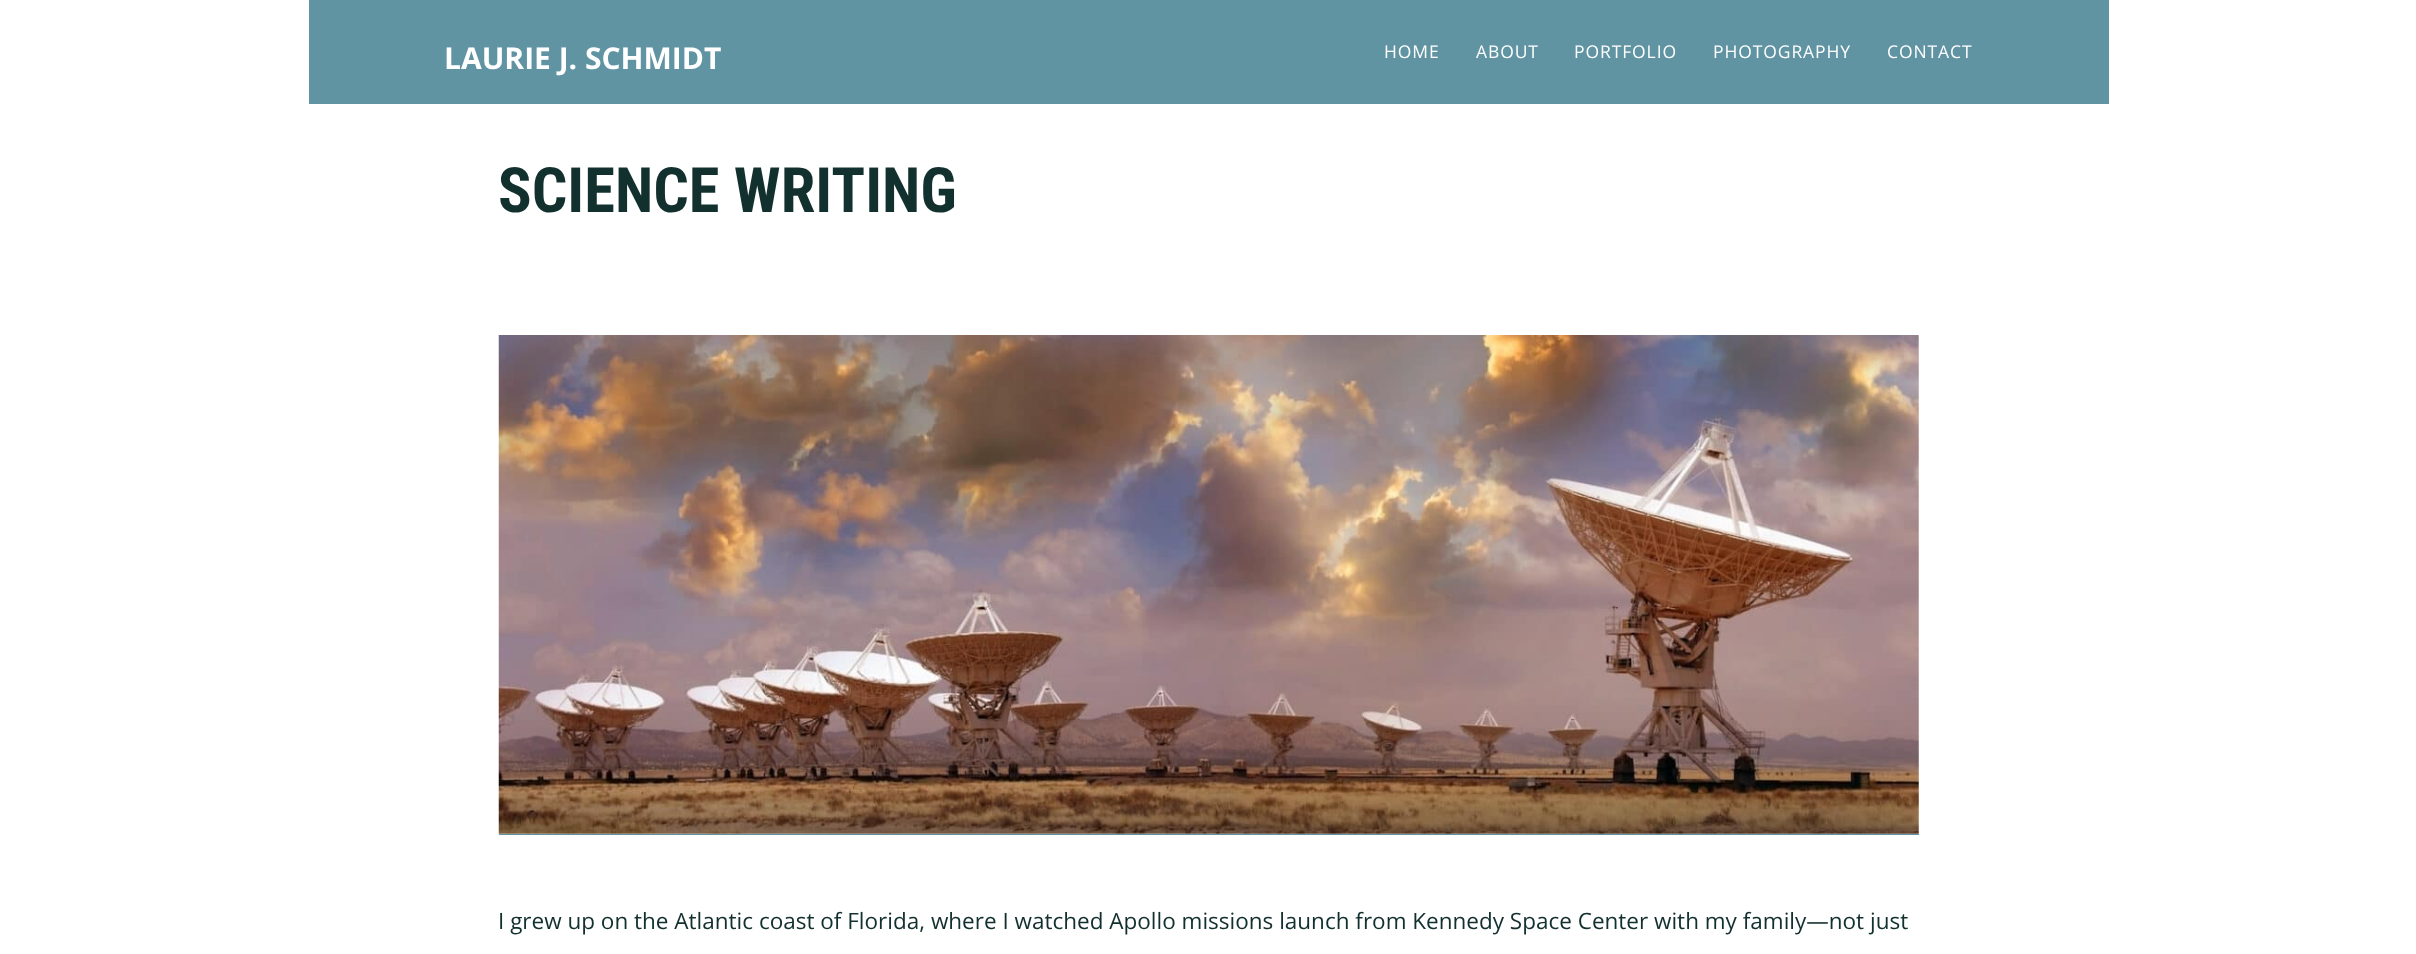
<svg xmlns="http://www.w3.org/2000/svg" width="2416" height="954">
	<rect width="100%" height="100%" fill="#FFFFFF" />
	<rect x="309" y="0" width="1800" height="104" fill="#6094A3" />
	<text x="444" y="69" font-family="Open Sans" font-size="30" font-weight="700" fill="#FFFFFF">LAURIE J. SCHMIDT</text>
	<g font-family="Open Sans" font-size="17.5" letter-spacing="0.9" fill="#FFFFFF">
		<text x="1384" y="58">HOME</text>
		<text x="1476" y="58">ABOUT</text>
		<text x="1574" y="58">PORTFOLIO</text>
		<text x="1713" y="58">PHOTOGRAPHY</text>
		<text x="1887" y="58">CONTACT</text>
	</g>
	<text x="498" y="212" font-family="Roboto Condensed" font-size="62.5" font-weight="700" fill="#12302E">SCIENCE WRITING</text>
	<rect x="499" y="834" width="1420" height="1" fill="#6094A3" />
	<image x="498" y="335" width="1421" height="499" href="assets/img1.png" />
	<text x="498" y="929" font-family="Open Sans" font-size="22.5" fill="#12302E">I grew up on the Atlantic coast of Florida, where I watched Apollo missions launch from Kennedy Space Center with my family—not just</text>
</svg>
